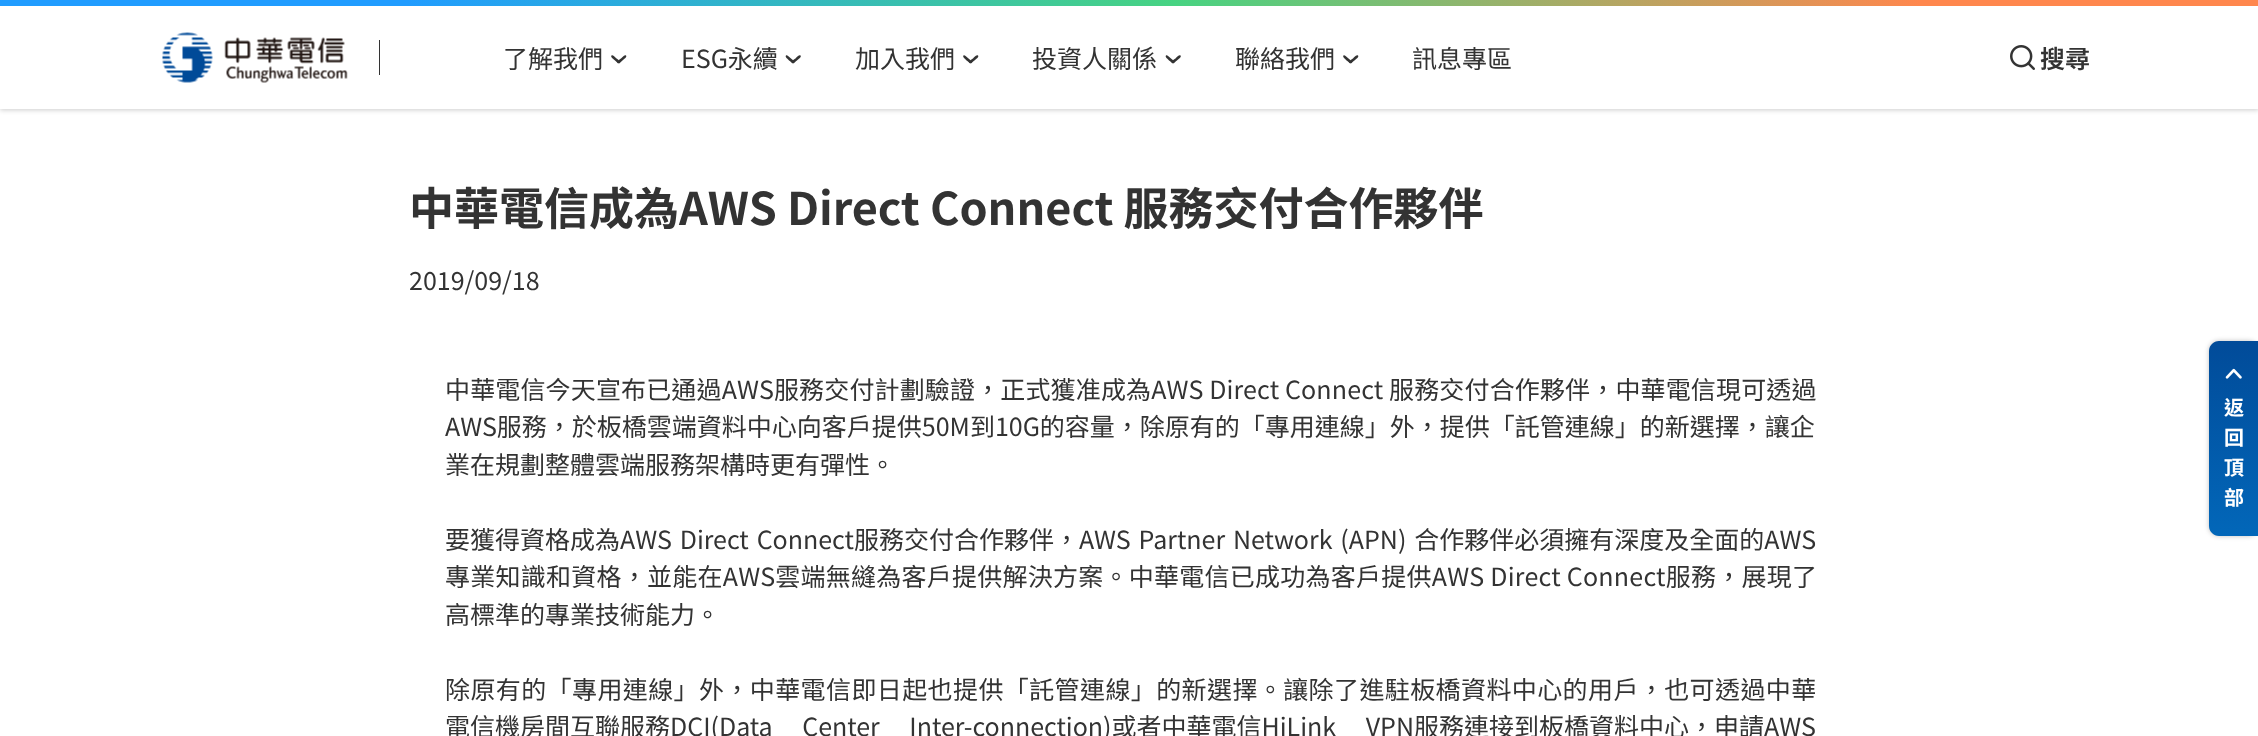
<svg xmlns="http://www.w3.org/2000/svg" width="2258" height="736">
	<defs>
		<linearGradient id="g1" gradientUnits="userSpaceOnUse" x1="0" y1="3.9" x2="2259" y2="2.3"><stop offset="0.18" stop-color="#209CFF" /><stop offset="0.52" stop-color="#47D382" /><stop offset="0.85" stop-color="#FF874D" /></linearGradient>
		<linearGradient id="g2" gradientUnits="userSpaceOnUse" x1="2234" y1="341" x2="2234" y2="536"><stop offset="0" stop-color="#014B99" /><stop offset="1" stop-color="#0267B9" /></linearGradient>
	</defs>
	<rect width="100%" height="100%" fill="#FFFFFF" />
	<rect x="0" y="1" width="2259" height="109" fill="#000000" fill-opacity="0.2" filter="blur(2.5px)" />
	<rect x="0" y="6" width="2258" height="103" fill="#FFFFFF" />
	<rect x="0" y="0" width="2258" height="6" fill="url(#g1)" />
	<image x="162" y="32" width="186" height="51" href="assets/img1.png" />
	<rect x="379" y="40" width="1" height="35" fill="#333333" />
	<text x="503" y="68" font-family="Noto Sans TC" font-size="25" fill="#333333">了解我們</text>
	<path d="M626 55.5C627.5 57 623.5 59.5 622.5 60.5C622 61 619 64.5 617.5 63C616.5 61.5 620 59 621 58.5C622 57.5 624.5 54 626 55.5Z" fill="#333333" />
	<path d="M611.5 55.5C613 54 615.5 57.5 616.5 58.5C617.5 59 621 61.5 620 63C618.5 64.5 615.5 61 615 60.5C614 59.5 610 57 611.5 55.5Z" fill="#333333" />
	<text x="681" y="68" font-family="Noto Sans TC" font-size="25" fill="#333333">ESG永續</text>
	<path d="M800.5 55.5C802 57 798 59.5 797 60.5C796 61 793.5 64.5 792 63C790.5 61.5 794.5 59 795.5 58.5C796 57.5 799 54 800.5 55.5Z" fill="#333333" />
	<path d="M786 55.5C787 54 790 57.5 791 58.5C791.5 59 795.5 61.5 794 63C793 64.5 790 61 789 60.5C788.5 59.5 784.5 57 786 55.5Z" fill="#333333" />
	<text x="855" y="68" font-family="Noto Sans TC" font-size="25" fill="#333333">加入我們</text>
	<path d="M978 55.5C979.5 57 975.5 59.5 974.5 60.5C973.5 61 971 64.5 969.5 63C968 61.5 972 59 973 58.5C973.5 57.5 976.5 54 978 55.5Z" fill="#333333" />
	<path d="M963.5 55.5C964.5 54 967.5 57.5 968.5 58.5C969 59 973 61.5 971.5 63C970.5 64.5 967.5 61 966.5 60.5C966 59.5 962 57 963.5 55.5Z" fill="#333333" />
	<text x="1032" y="68" font-family="Noto Sans TC" font-size="25" fill="#333333">投資人關係</text>
	<path d="M1180.5 55.5C1182 57 1178 59.5 1177 60.5C1176 61 1173.5 64.5 1172 63C1170.5 61.5 1174.5 59 1175.5 58.5C1176 57.5 1179 54 1180.5 55.5Z" fill="#333333" />
	<path d="M1166 55.5C1167 54 1170 57.5 1171 58.5C1171.5 59 1175.5 61.5 1174 63C1173 64.5 1170 61 1169 60.5C1168.5 59.5 1164.5 57 1166 55.5Z" fill="#333333" />
	<text x="1235" y="68" font-family="Noto Sans TC" font-size="25" fill="#333333">聯絡我們</text>
	<path d="M1358 55.5C1359.5 57 1355.5 59.5 1354.5 60.5C1353.5 61 1351 64.5 1349.5 63C1348 61.5 1352 59 1353 58.5C1353.5 57.5 1356.5 54 1358 55.5Z" fill="#333333" />
	<path d="M1343.5 55.5C1344.5 54 1347.5 57.5 1348.5 58.5C1349 59 1353 61.5 1351.5 63C1350.5 64.5 1347.5 61 1346.5 60.5C1346 59.5 1342 57 1343.5 55.5Z" fill="#333333" />
	<text x="1412" y="68" font-family="Noto Sans TC" font-size="25" fill="#333333">訊息專區</text>
	<image x="2010" y="45" width="25" height="25" href="assets/img2.png" />
	<text x="2040" y="68" font-family="Noto Sans TC" font-size="25" font-weight="600" fill="#333333">搜尋</text>
	<text x="409" y="225" font-family="Noto Sans TC" font-size="45" font-weight="700" fill="#333333">中華電信成為AWS Direct Connect 服務交付合作夥伴</text>
	<text x="409" y="290" font-family="Noto Sans TC" font-size="25" fill="#333333">2019/09/18</text>
	<text x="445" y="399" font-family="Noto Sans TC" font-size="25" letter-spacing="0.15" fill="#333333">中華電信今天宣布已通過AWS服務交付計劃驗證，正式獲准成為AWS Direct Connect 服務交付合作夥伴，中華電信現可透過</text>
	<g font-family="Noto Sans TC" font-size="25" fill="#333333">
		<text x="445" y="436">AWS服務，於板橋雲端資料中心向客戶提供50M到10G的容量，除原有的「專用連線」外，提供「託管連線」的新選擇，讓企</text>
		<text x="445" y="474">業在規劃整體雲端服務架構時更有彈性。</text>
		<text x="445" y="549" word-spacing="2.25">要獲得資格成為AWS Direct Connect服務交付合作夥伴，AWS Partner Network (APN) 合作夥伴必須擁有深度及全面的AWS</text>
	</g>
	<text x="445" y="586" font-family="Noto Sans TC" font-size="25" letter-spacing="0.25" fill="#333333">專業知識和資格，並能在AWS雲端無縫為客戶提供解決方案。中華電信已成功為客戶提供AWS Direct Connect服務，展現了</text>
	<text x="445" y="624" font-family="Noto Sans TC" font-size="25" fill="#333333">高標準的專業技術能力。</text>
	<text x="445" y="699" font-family="Noto Sans TC" font-size="25" letter-spacing="0.4" fill="#333333">除原有的「專用連線」外，中華電信即日起也提供「託管連線」的新選擇。讓除了進駐板橋資料中心的用戶，也可透過中華</text>
	<text x="445" y="736" word-spacing="24" font-family="Noto Sans TC" font-size="25" fill="#333333">電信機房間互聯服務DCI(Data Center Inter-connection)或者中華電信HiLink VPN服務連接到板橋資料中心，申請AWS</text>
	<rect x="2209" y="341" width="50" height="195" rx="10" fill="#000000" fill-opacity="0.25" filter="blur(2.5px)" />
	<path d="M2219 341H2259V536H2219C2213.5 536 2209 531.5 2209 526V351C2209 345.5 2213.5 341 2219 341Z" fill="url(#g2)" />
	<image x="2225" y="368" width="17" height="11" href="assets/img3.png" />
	<g font-family="Noto Sans TC" font-size="20" font-weight="700" fill="#FFFFFF">
		<text x="2224" y="415">返</text>
		<text x="2224" y="445">回</text>
		<text x="2224" y="475">頂</text>
		<text x="2224" y="505">部</text>
	</g>
</svg>
